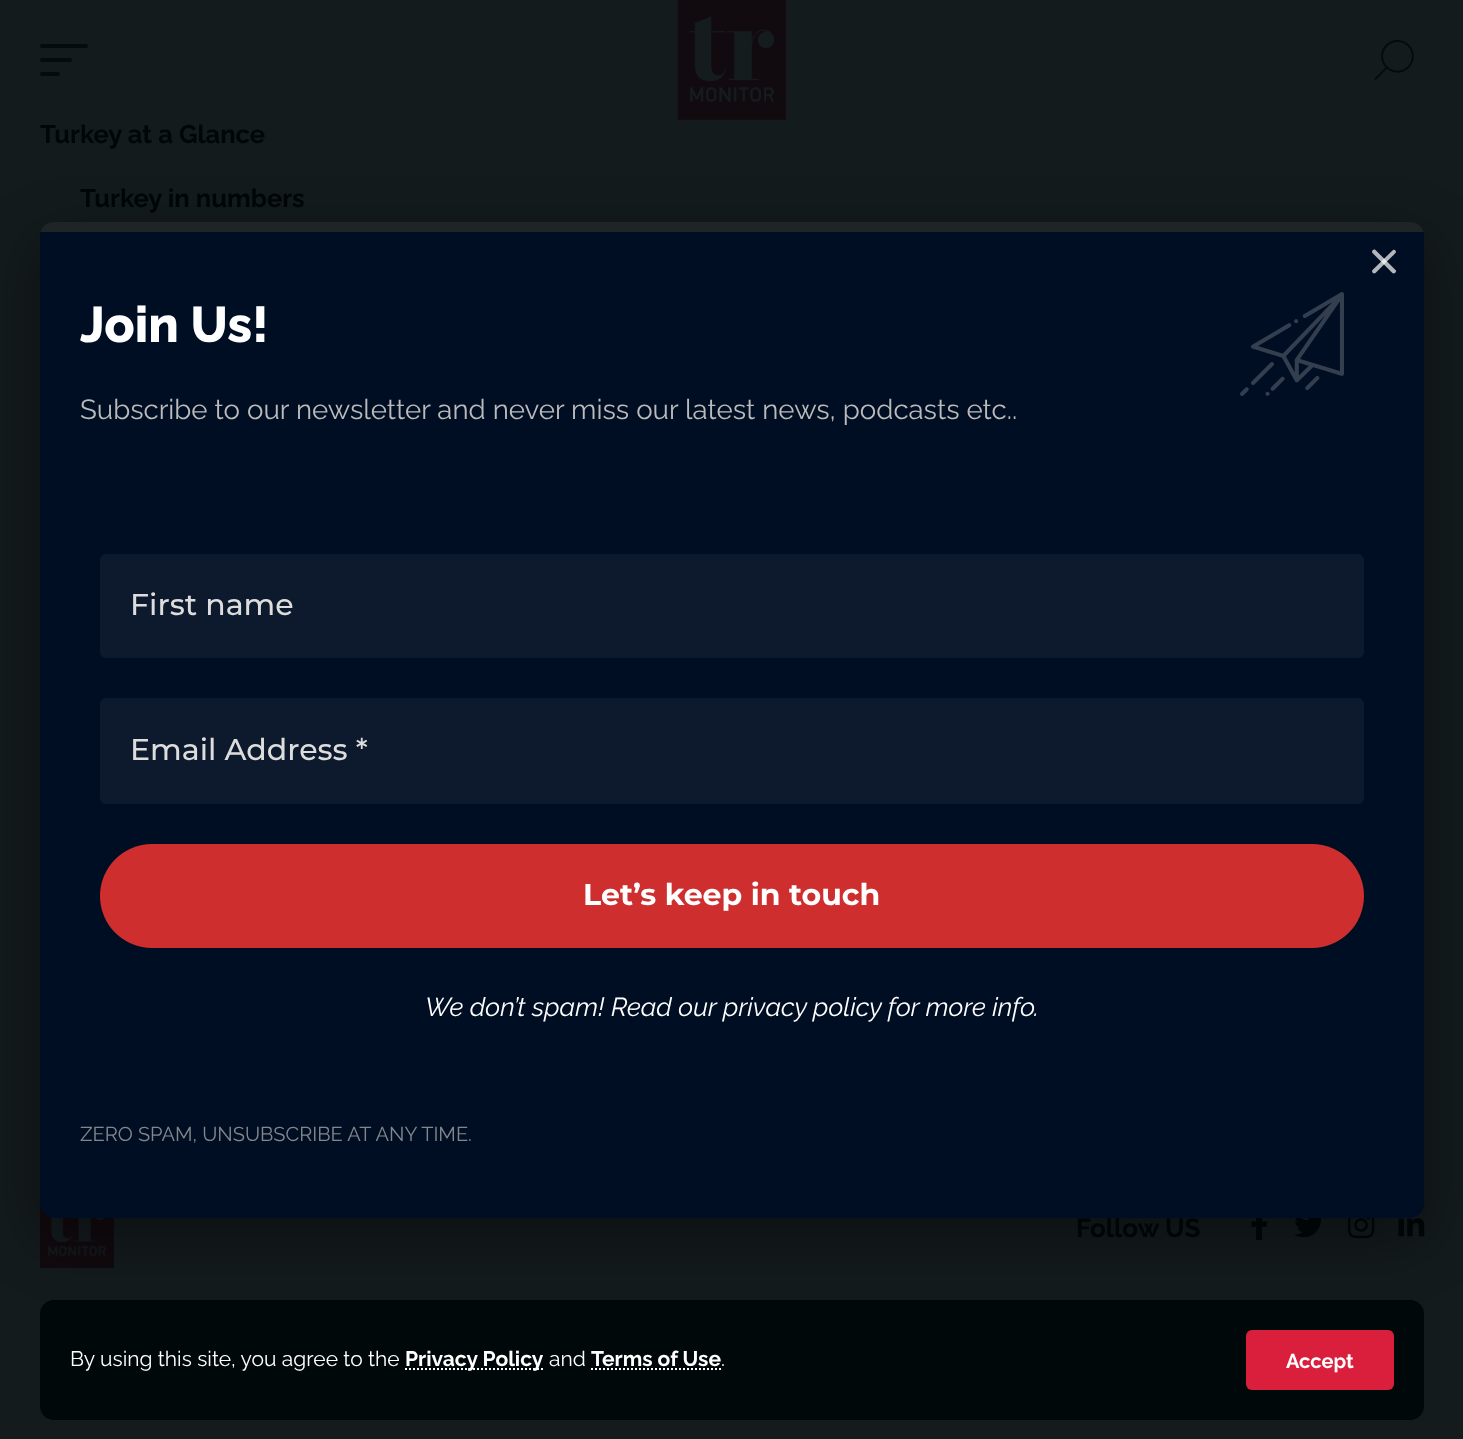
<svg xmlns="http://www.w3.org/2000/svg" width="1463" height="1439">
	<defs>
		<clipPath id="clip1"><rect x="40" y="222" width="1384" height="996" rx="14" /></clipPath>
	</defs>
	<rect width="100%" height="100%" fill="#141B1D" />
	<g font-family="Raleway" font-size="25.5" font-weight="700" fill="#000709">
		<text x="40" y="143">Turkey at a Glance</text>
		<text x="80" y="207">Turkey in numbers</text>
	</g>
	<image x="40" y="1204" width="74" height="64" href="assets/img1.png" />
	<text x="1076" y="1237" font-family="Raleway" font-size="26" font-weight="700" fill="#000709">Follow US</text>
	<image x="1251" y="1218" width="17" height="22" href="assets/img2.png" />
	<image x="1294" y="1218" width="28" height="20" href="assets/img3.png" />
	<image x="1348" y="1218" width="27" height="21" href="assets/img4.png" />
	<image x="1398" y="1218" width="27" height="19" href="assets/img5.png" />
	<rect x="40" y="44" width="48" height="4" rx="2" fill="#030B0C" />
	<rect x="40" y="58" width="32" height="4" rx="2" fill="#030B0C" />
	<rect x="40" y="72" width="20" height="4" rx="2" fill="#030B0C" />
	<image x="677" y="0" width="110" height="120" href="assets/img6.png" />
	<image x="1374" y="40" width="40" height="40" href="assets/img7.png" />
	<rect x="40" y="242" width="1384" height="996" rx="14" fill="#000000" fill-opacity="0.4" filter="blur(30px)" />
	<rect x="40" y="1300" width="1384" height="120" rx="14" fill="#00080A" />
	<text x="70" y="1366" font-family="Raleway" font-size="21" fill="#FFFFFF">By using this site, you agree to the</text>
	<path d="M405 1369H543.5" fill="none" stroke="#FFFFFF" stroke-width="2" stroke-dasharray="2 2" />
	<text x="405" y="1366" font-family="Raleway" font-size="21" font-weight="700" fill="#FFFFFF">Privacy Policy</text>
	<text x="549" y="1366" font-family="Raleway" font-size="21" fill="#FFFFFF">and</text>
	<text x="591" y="1366" font-family="Raleway" font-size="21" font-weight="700" fill="#FFFFFF">Terms of Use</text>
	<path d="M591 1369H721" fill="none" stroke="#FFFFFF" stroke-width="2" stroke-dasharray="2 2" />
	<text x="721" y="1366" font-family="Raleway" font-size="21" fill="#FFFFFF">.</text>
	<rect x="1246" y="1330" width="148" height="60" rx="6" fill="#DA1F3D" />
	<text x="1286" y="1368" font-family="Raleway" font-size="20" font-weight="700" fill="#FFFFFF">Accept</text>
	<g clip-path="url(#clip1)">
		<path d="M40 232H1424V1204C1424 1211.5 1417.5 1218 1410 1218H54C46.5 1218 40 1211.5 40 1204Z" fill="#000E23" />
	</g>
	<path d="M1375.5 250L1396 270.5C1396.5 272 1395 273.5 1393.5 273.5C1392 273 1389 269.5 1389 269.5L1372.5 253C1371 251 1373.5 248.5 1375.5 250Z" fill="#B3B7BD" />
	<path d="M1372.5 270L1393 250C1394.5 249 1396 250.5 1396 252C1395.5 253.5 1392 256.5 1392 256.5L1375.5 273C1373.5 274.5 1371 272 1372.5 270Z" fill="#FFFFFF" fill-opacity="0.7" />
	<g clip-path="url(#clip1)">
		<rect x="40" y="222" width="1384" height="10" fill="#1F2527" />
	</g>
	<text x="80" y="342" font-family="Raleway" font-size="50" font-weight="800" fill="#FFFFFF">Join Us!</text>
	<image x="1240" y="292" width="104" height="104" href="assets/img8.png" />
	<text x="80" y="419" font-family="Raleway" font-size="27.6" fill="#BBBBBB">Subscribe to our newsletter and never miss our latest news, podcasts etc..</text>
	<rect x="100" y="554" width="1264" height="104" rx="6" fill="#0D192C" />
	<text x="130" y="615" font-family="Montserrat" font-size="30" font-weight="500" fill="#DDDDDD">First name</text>
	<rect x="100" y="698" width="1264" height="106" rx="6" fill="#0D192C" />
	<text x="130" y="760" font-family="Montserrat" font-size="30" font-weight="500" fill="#DDDDDD">Email Address *</text>
	<rect x="100" y="844" width="1264" height="104" rx="52" fill="#CF2E2E" />
	<text x="583" y="905" font-family="Montserrat" font-size="30" font-weight="700" fill="#FFFFFF">Let’s keep in touch</text>
	<text x="425" y="1016" font-family="Raleway" font-size="26" font-style="italic" fill="#FFFFFF">We don’t spam! Read our privacy policy for more info.</text>
	<text x="80" y="1141" font-family="Raleway" font-size="20" fill="#83878D">ZERO SPAM, UNSUBSCRIBE AT ANY TIME.</text>
</svg>
